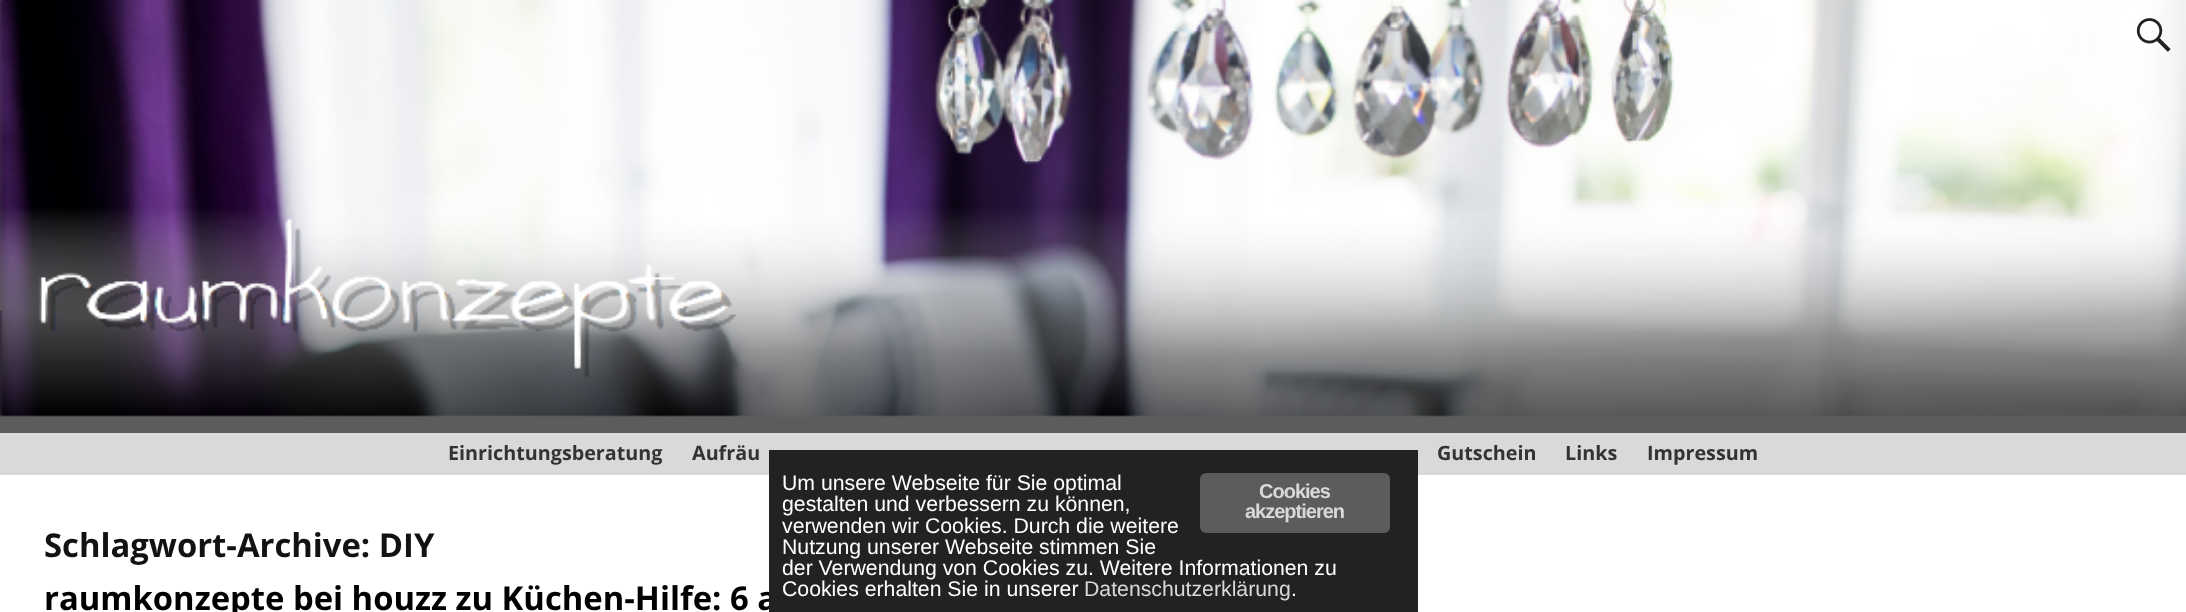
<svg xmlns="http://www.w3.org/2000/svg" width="2186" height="612">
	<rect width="100%" height="100%" fill="#FFFFFF" />
	<rect x="0" y="0" width="2186" height="433" fill="#5C5C5C" />
	<image x="0" y="0" width="2186" height="417" href="assets/img1.png" />
	<image x="2136" y="18" width="35" height="34" href="assets/img2.png" />
	<rect x="0" y="433" width="2186" height="42" fill="#D9D9D9" />
	<g font-family="Open Sans" font-size="19.75" font-weight="700" fill="#333333">
		<text x="448" y="460">Einrichtungsberatung</text>
		<text x="692" y="460">Aufräu</text>
		<text x="1437" y="460">Gutschein</text>
		<text x="1565" y="460">Links</text>
		<text x="1647" y="460">Impressum</text>
	</g>
	<text x="44" y="557" font-family="Open Sans" font-size="32.8" font-weight="700" fill="#121212">Schlagwort-Archive: DIY</text>
	<text x="44" y="610" font-family="Open Sans" font-size="32.8" font-weight="700" fill="#000000">raumkonzepte bei houzz zu Küchen-Hilfe: 6 a</text>
	<rect x="769" y="450" width="649" height="162" fill="#222222" />
	<g font-family="Liberation Sans" font-size="21.25" fill="#FFFFFF">
		<text x="782" y="490">Um unsere Webseite für Sie optimal</text>
		<text x="782" y="511">gestalten und verbessern zu können,</text>
		<text x="782" y="533">verwenden wir Cookies. Durch die weitere</text>
		<text x="782" y="554">Nutzung unserer Webseite stimmen Sie</text>
		<text x="782" y="575">der Verwendung von Cookies zu. Weitere Informationen zu</text>
		<text x="782" y="596">Cookies erhalten Sie in unserer</text>
	</g>
	<text x="1084" y="596" font-family="Liberation Sans" font-size="21.25" fill="#D9D9D9">Datenschutzerklärung</text>
	<text x="1291" y="596" font-family="Liberation Sans" font-size="21.25" fill="#FFFFFF">.</text>
	<rect x="1200" y="473" width="190" height="60" rx="6" fill="#5C5C5C" />
	<g font-family="Liberation Sans" font-size="20" font-weight="700" letter-spacing="-1" fill="#D9D9D9">
		<text x="1259" y="498">Cookies</text>
		<text x="1245" y="518">akzeptieren</text>
	</g>
</svg>
